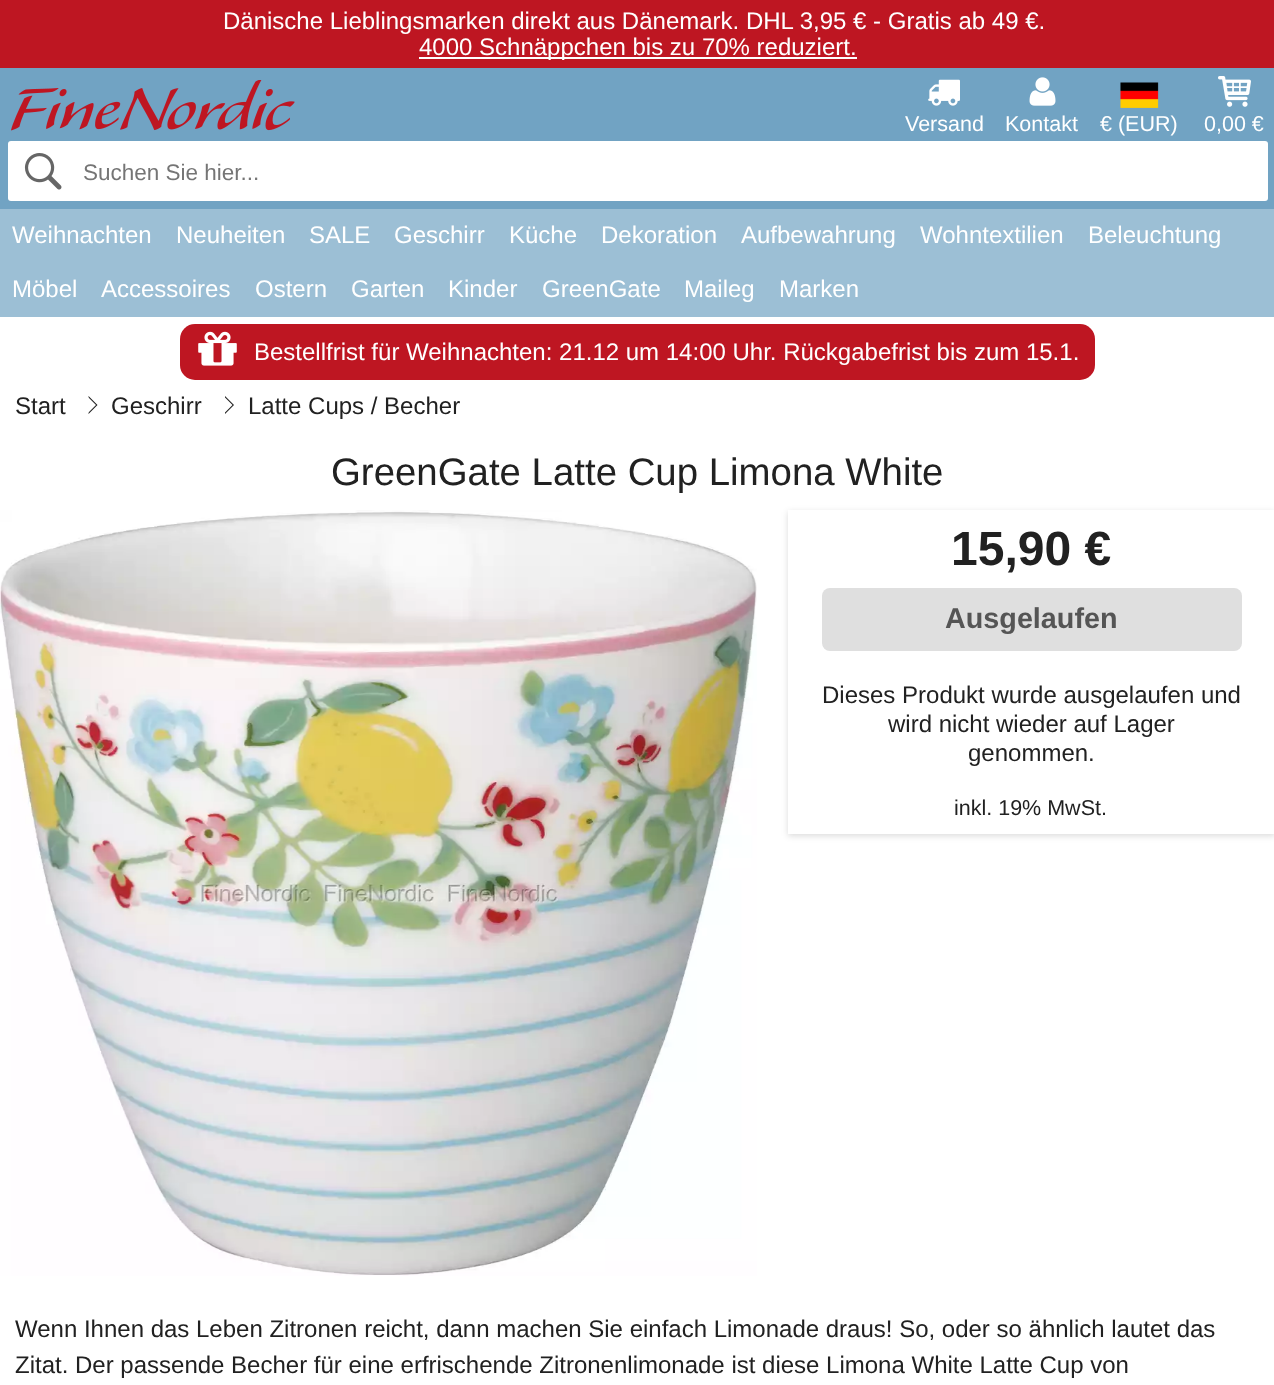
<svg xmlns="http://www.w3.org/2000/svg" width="1274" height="1385">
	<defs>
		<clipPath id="clip1"><path d="M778 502H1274V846H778ZM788 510H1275V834H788Z" clip-rule="evenodd" /></clipPath>
	</defs>
	<rect width="100%" height="100%" fill="#FFFFFF" />
	<rect x="0" y="0" width="1274" height="68" fill="#BE1622" />
	<text x="223" y="29" font-family="Liberation Sans" font-size="24" fill="#FFFFFF">Dänische Lieblingsmarken direkt aus Dänemark. DHL 3,95 € - Gratis ab 49 €.</text>
	<rect x="419" y="57" width="438" height="2" fill="#FFFFFF" />
	<text x="419" y="55" font-family="Liberation Sans" font-size="24" fill="#FFFFFF">4000 Schnäppchen bis zu 70% reduziert.</text>
	<rect x="0" y="68" width="1274" height="141" fill="#71A3C3" />
	<image x="928" y="79" width="32" height="27" href="assets/img1.png" />
	<text x="905" y="131" font-family="Liberation Sans" font-size="21.5" fill="#FFFFFF">Versand</text>
	<image x="1029" y="77" width="27" height="29" href="assets/img2.png" />
	<text x="1005" y="131" font-family="Liberation Sans" font-size="21.5" fill="#FFFFFF">Kontakt</text>
	<image x="1120" y="82" width="39" height="26" href="assets/img3.png" />
	<text x="1100" y="131" font-family="Liberation Sans" font-size="21.5" fill="#FFFFFF">€ (EUR)</text>
	<image x="1218" y="76" width="33" height="31" href="assets/img4.png" />
	<text x="1204" y="131" font-family="Liberation Sans" font-size="21.5" fill="#FFFFFF">0,00 €</text>
	<image x="11" y="80" width="284" height="51" href="assets/img5.png" />
	<rect x="8" y="141" width="1260" height="60" rx="3" fill="#FFFFFF" />
	<image x="24" y="153" width="38" height="37" href="assets/img6.png" />
	<text x="83" y="180" font-family="Liberation Sans" font-size="22.5" fill="#757575">Suchen Sie hier...</text>
	<rect x="0" y="209" width="1274" height="108" fill="#9CBFD5" />
	<g font-family="Liberation Sans" font-size="24" fill="#FFFFFF">
		<text x="12" y="243">Weihnachten</text>
		<text x="176" y="243">Neuheiten</text>
		<text x="309" y="243">SALE</text>
		<text x="394" y="243">Geschirr</text>
		<text x="509" y="243">Küche</text>
		<text x="601" y="243">Dekoration</text>
		<text x="741" y="243">Aufbewahrung</text>
		<text x="920" y="243">Wohntextilien</text>
		<text x="1088" y="243">Beleuchtung</text>
		<text x="12" y="297">Möbel</text>
		<text x="101" y="297">Accessoires</text>
		<text x="255" y="297">Ostern</text>
		<text x="351" y="297">Garten</text>
		<text x="448" y="297">Kinder</text>
		<text x="542" y="297">GreenGate</text>
		<text x="684" y="297">Maileg</text>
		<text x="779" y="297">Marken</text>
	</g>
	<rect x="180" y="324" width="915" height="56" rx="15" fill="#BE1622" />
	<image x="198" y="331" width="39" height="35" href="assets/img7.png" />
	<text x="254" y="360" font-family="Liberation Sans" font-size="24" fill="#FFFFFF">Bestellfrist für Weihnachten: 21.12 um 14:00 Uhr. Rückgabefrist bis zum 15.1.</text>
	<text x="15" y="414" font-family="Liberation Sans" font-size="24" fill="#212121">Start</text>
	<path d="M88.5 414V396L97.5 405Z" fill="#212121" />
	<path d="M87 414V396L96 405Z" fill="#FFFFFF" />
	<text x="111" y="414" font-family="Liberation Sans" font-size="24" fill="#212121">Geschirr</text>
	<path d="M225 414V396L234 405Z" fill="#212121" />
	<path d="M223.5 414V396L232.5 405Z" fill="#FFFFFF" />
	<text x="248" y="414" font-family="Liberation Sans" font-size="24" fill="#212121">Latte Cups / Becher</text>
	<text x="331" y="485" font-family="Liberation Sans" font-size="38.4" fill="#212121">GreenGate Latte Cup Limona White</text>
	<image x="0" y="510" width="757" height="766" href="assets/img8.png" />
	<g clip-path="url(#clip1)">
		<rect x="788" y="512" width="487" height="324" fill="#000000" fill-opacity="0.14" filter="blur(3px)" />
	</g>
	<text x="951" y="565" font-family="Liberation Sans" font-size="48" font-weight="700" fill="#212121">15,90 €</text>
	<rect x="822" y="588" width="420" height="63" rx="8" fill="#DFDFDF" />
	<text x="945" y="628" font-family="Liberation Sans" font-size="28.75" font-weight="700" fill="#555555">Ausgelaufen</text>
	<g font-family="Liberation Sans" font-size="24" fill="#212121">
		<text x="822" y="703">Dieses Produkt wurde ausgelaufen und</text>
		<text x="888" y="732">wird nicht wieder auf Lager</text>
		<text x="968" y="761">genommen.</text>
	</g>
	<text x="954" y="815" font-family="Liberation Sans" font-size="21.5" fill="#212121">inkl. 19% MwSt.</text>
	<g font-family="Liberation Sans" font-size="24" fill="#212121">
		<text x="15" y="1337">Wenn Ihnen das Leben Zitronen reicht, dann machen Sie einfach Limonade draus! So, oder so ähnlich lautet das</text>
		<text x="15" y="1373">Zitat. Der passende Becher für eine erfrischende Zitronenlimonade ist diese Limona White Latte Cup von</text>
	</g>
</svg>
